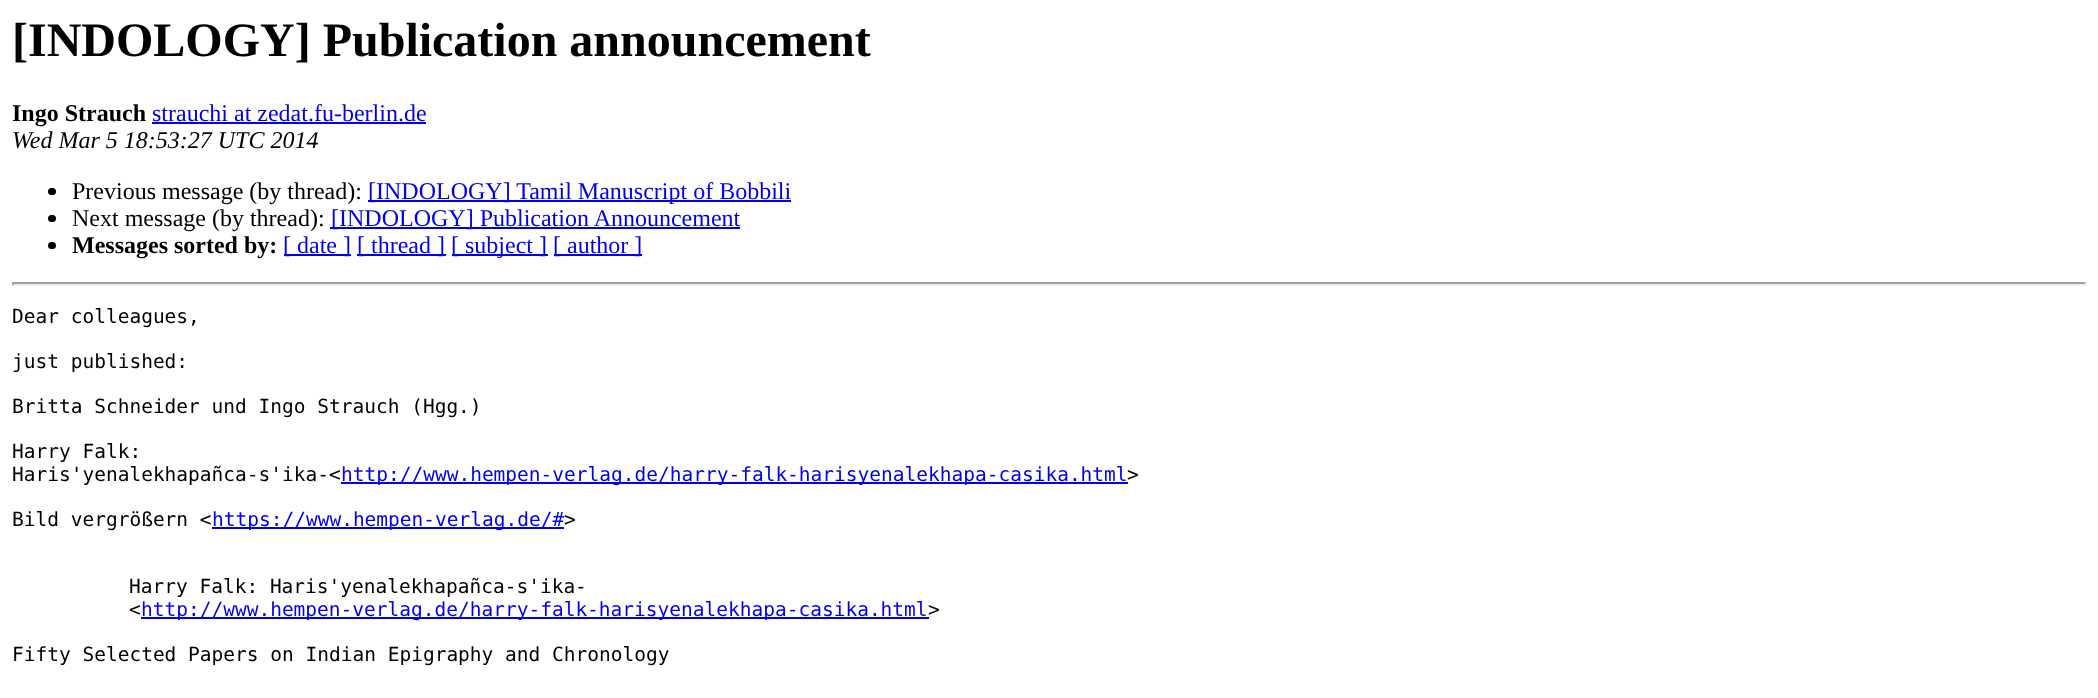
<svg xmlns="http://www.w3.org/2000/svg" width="2098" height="698">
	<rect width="100%" height="100%" fill="#FFFFFF" />
	<text x="12" y="56" font-family="Liberation Serif" font-size="48" font-weight="700" fill="#000000">[INDOLOGY] Publication announcement</text>
	<text x="12" y="121" font-family="Liberation Serif" font-size="24" font-weight="700" fill="#000000">Ingo Strauch</text>
	<text x="152" y="121" font-family="Liberation Serif" font-size="24" fill="#0000EE">strauchi at zedat.fu-berlin.de</text>
	<rect x="152" y="122" width="274" height="2" fill="#0000EE" />
	<text x="12" y="148" font-family="Liberation Serif" font-size="24" font-style="italic" fill="#000000">Wed Mar 5 18:53:27 UTC 2014</text>
	<rect x="48" y="188" width="8" height="7" rx="3.5" fill="#000000" />
	<text x="72" y="199" font-family="Liberation Serif" font-size="24" fill="#000000">Previous message (by thread):</text>
	<rect x="368" y="200" width="423" height="2" fill="#0000EE" />
	<text x="368" y="199" font-family="Liberation Serif" font-size="24" fill="#0000EE">[INDOLOGY] Tamil Manuscript of Bobbili</text>
	<rect x="48" y="215" width="8" height="7" rx="3.5" fill="#000000" />
	<text x="72" y="226" font-family="Liberation Serif" font-size="24" fill="#000000">Next message (by thread):</text>
	<rect x="330" y="227" width="410" height="2" fill="#0000EE" />
	<text x="331" y="226" font-family="Liberation Serif" font-size="24" fill="#0000EE">[INDOLOGY] Publication Announcement</text>
	<rect x="48" y="242" width="8" height="7" rx="3.5" fill="#000000" />
	<text x="72" y="253" font-family="Liberation Serif" font-size="24" font-weight="700" fill="#000000">Messages sorted by:</text>
	<rect x="284" y="254" width="67" height="2" fill="#0000EE" />
	<text x="283" y="253" font-family="Liberation Serif" font-size="24" fill="#0000EE">[ date ]</text>
	<rect x="357" y="254" width="89" height="2" fill="#0000EE" />
	<text x="357" y="253" font-family="Liberation Serif" font-size="24" fill="#0000EE">[ thread ]</text>
	<rect x="452" y="254" width="96" height="2" fill="#0000EE" />
	<text x="451" y="253" font-family="Liberation Serif" font-size="24" fill="#0000EE">[ subject ]</text>
	<rect x="554" y="254" width="88" height="2" fill="#0000EE" />
	<text x="553" y="253" font-family="Liberation Serif" font-size="24" fill="#0000EE">[ author ]</text>
	<rect x="12" y="282" width="2075" height="2" fill="#9F9F9F" />
	<rect x="2085" y="282" width="2" height="3" fill="#EEEEEE" />
	<rect x="12" y="284" width="2075" height="2" fill="#EEEEEE" />
	<rect x="12" y="282" width="2" height="3" fill="#9F9F9F" />
	<g font-family="DejaVu Sans Mono" font-size="19.5" fill="#000000">
		<text x="12" y="323">Dear colleagues,</text>
		<text x="12" y="368">just published:</text>
		<text x="12" y="413">Britta Schneider und Ingo Strauch (Hgg.)</text>
		<text x="12" y="458">Harry Falk:</text>
		<text x="12" y="481">Haris'yenalekhapañca-s'ika-&lt;</text>
	</g>
	<rect x="341" y="482" width="787" height="2" fill="#0000EE" />
	<text x="341" y="481" font-family="DejaVu Sans Mono" font-size="19.5" fill="#0000EE">http://www.hempen-verlag.de/harry-falk-harisyenalekhapa-casika.html</text>
	<g font-family="DejaVu Sans Mono" font-size="19.5" fill="#000000">
		<text x="1127" y="481">&gt;</text>
		<text x="12" y="526">Bild vergrößern &lt;</text>
	</g>
	<rect x="212" y="527" width="352" height="2" fill="#0000EE" />
	<text x="212" y="526" font-family="DejaVu Sans Mono" font-size="19.5" fill="#0000EE">https://www.hempen-verlag.de/#</text>
	<g font-family="DejaVu Sans Mono" font-size="19.5" fill="#000000">
		<text x="564" y="526">&gt;</text>
		<text x="129" y="593">Harry Falk: Haris'yenalekhapañca-s'ika-</text>
		<text x="129" y="616">&lt;</text>
	</g>
	<rect x="141" y="617" width="788" height="2" fill="#0000EE" />
	<text x="141" y="616" font-family="DejaVu Sans Mono" font-size="19.5" fill="#0000EE">http://www.hempen-verlag.de/harry-falk-harisyenalekhapa-casika.html</text>
	<g font-family="DejaVu Sans Mono" font-size="19.5" fill="#000000">
		<text x="928" y="616">&gt;</text>
		<text x="12" y="661">Fifty Selected Papers on Indian Epigraphy and Chronology</text>
	</g>
</svg>
